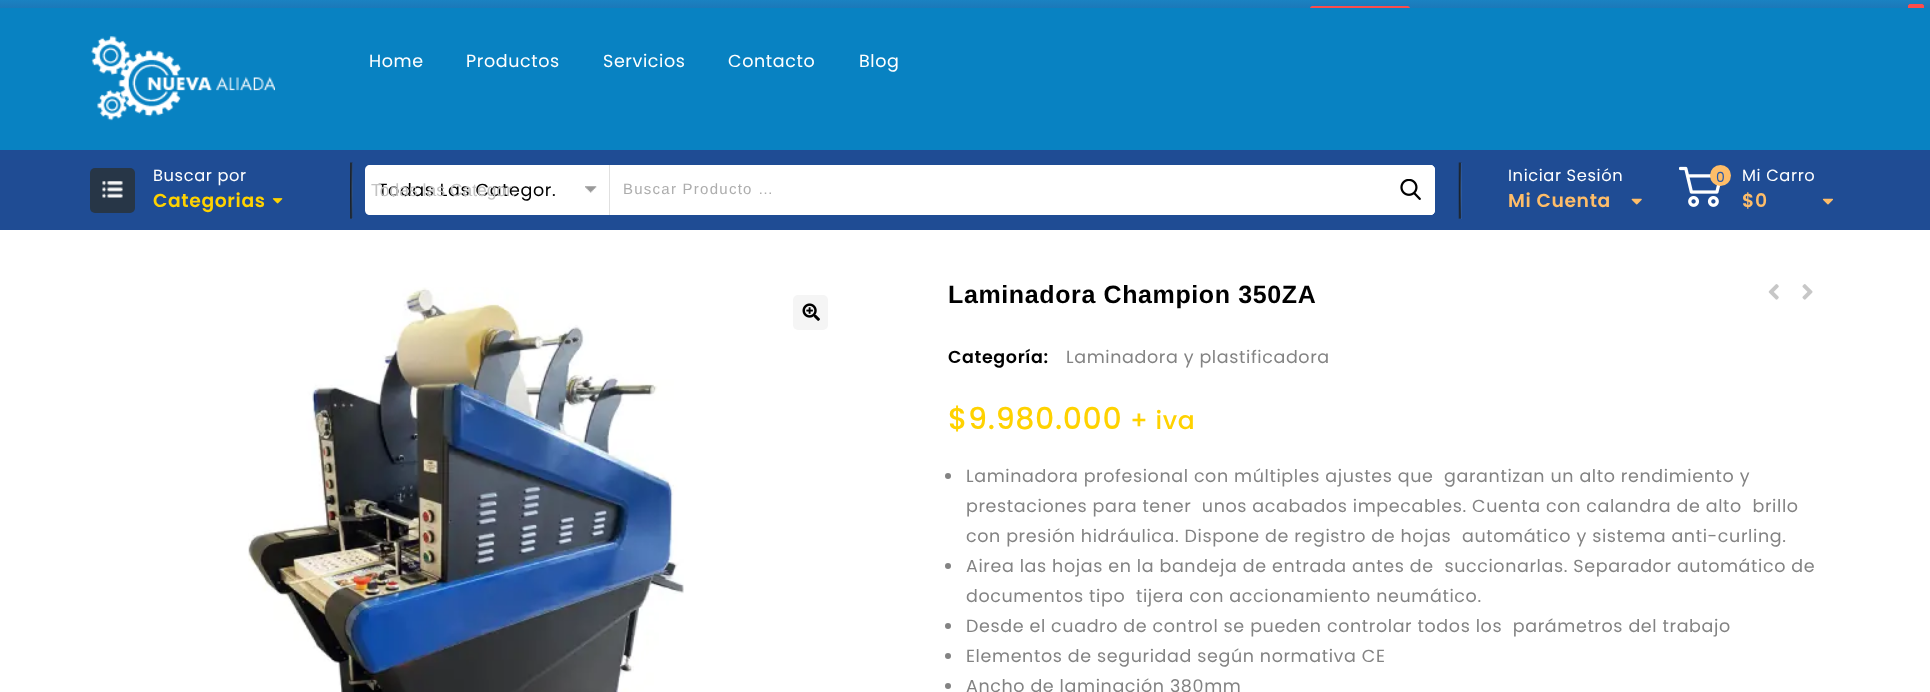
<svg xmlns="http://www.w3.org/2000/svg" width="1930" height="692">
	<defs>
		<linearGradient id="g1" gradientUnits="userSpaceOnUse" x1="965" y1="0" x2="965" y2="43"><stop offset="0" stop-color="#1A82C2" /><stop offset="1" stop-color="#234E92" /></linearGradient>
		<linearGradient id="g2" gradientUnits="userSpaceOnUse" x1="1360" y1="6.2" x2="1360" y2="36"><stop offset="0" stop-color="#FF4C4C" /><stop offset="1" stop-color="#E82A2A" /></linearGradient>
		<clipPath id="clip1"><rect x="0" y="0" width="1930" height="8" /></clipPath>
	</defs>
	<rect width="100%" height="100%" fill="#FFFFFF" />
	<rect x="0" y="0" width="1930" height="8" fill="url(#g1)" />
	<path d="M1312.5 6H1407.5C1409 6 1410 7 1410 8.5V8H1310V8.5C1310 7 1311 6 1312.5 6Z" fill="url(#g2)" />
	<path d="M1910.5 4H1921.5C1923 4 1924 5 1924 6.5V8H1908V6.5C1908 5 1909 4 1910.5 4Z" fill="#FF4C4C" />
	<rect x="0" y="8" width="1930" height="142" fill="#0882C2" />
	<g clip-path="url(#clip1)">
		<rect x="1908.5" y="4.5" width="15" height="14" rx="2" fill="none" stroke="#FF4C4C" />
	</g>
	<image x="91" y="36" width="184" height="85" href="assets/img1.png" />
	<g font-family="Poppins" font-size="17.5" letter-spacing="0.62" fill="#FFFFFF">
		<text x="369" y="67">Home</text>
		<text x="466" y="67">Productos</text>
		<text x="603" y="67">Servicios</text>
		<text x="728" y="67">Contacto</text>
		<text x="859" y="67">Blog</text>
	</g>
	<rect x="0" y="150" width="1930" height="80" fill="#1F4C94" />
	<rect x="90" y="168" width="45" height="45" rx="5" fill="#273647" />
	<image x="102" y="181" width="21" height="17" href="assets/img2.png" />
	<text x="153" y="181" font-family="Poppins" font-size="16.25" letter-spacing="0.62" fill="#FFFFFF">Buscar por</text>
	<text x="153" y="207" font-family="Poppins" font-size="18.75" font-weight="600" letter-spacing="0.62" fill="#FFD200">Categorias</text>
	<image x="272" y="198" width="11" height="6" href="assets/img3.png" />
	<rect x="350" y="163" width="3" height="56" fill="#2B63BD" />
	<image x="350" y="162" width="3" height="57" href="assets/img4.png" />
	<path d="M370 165H610V215H370C367 215 365 213 365 210V170C365 167 367 165 370 165Z" fill="#FFFFFF" />
	<text x="378" y="196" font-family="Poppins" font-size="17.5" letter-spacing="0.62" fill="#000000">Todas Las Categor.</text>
	<text x="371" y="196" font-family="Liberation Sans" font-size="17.5" fill="#C3C3C3">Todas las Categor.</text>
	<rect x="609" y="165" width="1" height="50" fill="#E0E0E0" />
	<image x="585" y="186" width="12" height="7" href="assets/img5.png" />
	<path d="M610 165H1430C1433 165 1435 167 1435 170V210C1435 213 1433 215 1430 215H610Z" fill="#FFFFFF" />
	<text x="623" y="194" font-family="Liberation Sans" font-size="15" letter-spacing="1.25" fill="#ADADAD">Buscar Producto …</text>
	<path d="M1385 165H1430C1433 165 1435 167 1435 170V210C1435 213 1433 215 1430 215H1385Z" fill="#FFFFFF" />
	<image x="1400" y="179" width="21" height="21" href="assets/img6.png" />
	<rect x="1459" y="163" width="3" height="56" fill="#2B63BD" />
	<image x="1458" y="162" width="4" height="57" href="assets/img7.png" />
	<text x="1508" y="181" font-family="Poppins" font-size="16.25" letter-spacing="0.62" fill="#FFFFFF">Iniciar Sesión</text>
	<text x="1508" y="207" font-family="Poppins" font-size="18.75" font-weight="600" letter-spacing="0.62" fill="#FEBD69">Mi Cuenta</text>
	<image x="1631" y="198" width="11" height="7" href="assets/img8.png" />
	<image x="1679" y="166" width="42" height="41" href="assets/img9.png" />
	<circle cx="1720.5" cy="175.5" r="10.5" fill="#FEBD69" />
	<text x="1716" y="182" font-family="Poppins" font-size="14" letter-spacing="0.62" fill="#2457AA">0</text>
	<text x="1742" y="181" font-family="Poppins" font-size="16.25" letter-spacing="0.62" fill="#FFFFFF">Mi Carro</text>
	<text x="1742" y="207" font-family="Poppins" font-size="18.75" font-weight="600" letter-spacing="0.62" fill="#FEBD69">$0</text>
	<image x="1822" y="198" width="11" height="7" href="assets/img10.png" />
	<image x="248" y="287" width="436" height="405" href="assets/img11.png" />
	<rect x="793" y="295" width="35" height="35" rx="5" fill="#F5F5F5" />
	<image x="802" y="303" width="18" height="18" href="assets/img12.png" />
	<text x="948" y="303" font-family="Liberation Sans" font-size="25" font-weight="700" letter-spacing="0.62" fill="#000000">Laminadora Champion 350ZA</text>
	<image x="1768" y="284" width="11" height="16" href="assets/img13.png" />
	<image x="1802" y="284" width="11" height="16" href="assets/img14.png" />
	<text x="948" y="363" font-family="Poppins" font-size="17.5" font-weight="600" letter-spacing="0.62" fill="#000000">Categoría:</text>
	<text x="1066" y="363" font-family="Poppins" font-size="17.5" letter-spacing="0.62" fill="#838383">Laminadora y plastificadora</text>
	<text x="948" y="429" font-family="Poppins" font-size="30" font-weight="500" letter-spacing="0.62" fill="#FFD200">$9.980.000</text>
	<text x="1130" y="429" font-family="Poppins" font-size="25" font-weight="500" letter-spacing="0.62" fill="#FFD200">+ iva</text>
	<circle cx="948" cy="476" r="3" fill="#838383" />
	<g font-family="Poppins" font-size="17.5" letter-spacing="0.62" fill="#838383">
		<text x="966" y="482" xml:space="preserve">Laminadora profesional con múltiples ajustes que  garantizan un alto rendimiento y</text>
		<text x="966" y="512" xml:space="preserve">prestaciones para tener  unos acabados impecables. Cuenta con calandra de alto  brillo</text>
		<text x="966" y="542" xml:space="preserve">con presión hidráulica. Dispone de registro de hojas  automático y sistema anti-curling.</text>
	</g>
	<circle cx="948" cy="566" r="3" fill="#838383" />
	<g font-family="Poppins" font-size="17.5" letter-spacing="0.62" fill="#838383">
		<text x="966" y="572" xml:space="preserve">Airea las hojas en la bandeja de entrada antes de  succionarlas. Separador automático de</text>
		<text x="966" y="602" xml:space="preserve">documentos tipo  tijera con accionamiento neumático.</text>
	</g>
	<circle cx="948" cy="626" r="3" fill="#838383" />
	<text x="966" y="632" font-family="Poppins" font-size="17.5" letter-spacing="0.62" fill="#838383" xml:space="preserve">Desde el cuadro de control se pueden controlar todos los  parámetros del trabajo</text>
	<circle cx="948" cy="656" r="3" fill="#838383" />
	<text x="966" y="662" font-family="Poppins" font-size="17.5" letter-spacing="0.62" fill="#838383">Elementos de seguridad según normativa CE</text>
	<circle cx="948" cy="686" r="3" fill="#838383" />
	<text x="966" y="692" font-family="Poppins" font-size="17.5" letter-spacing="0.62" fill="#838383">Ancho de laminación 380mm</text>
</svg>
